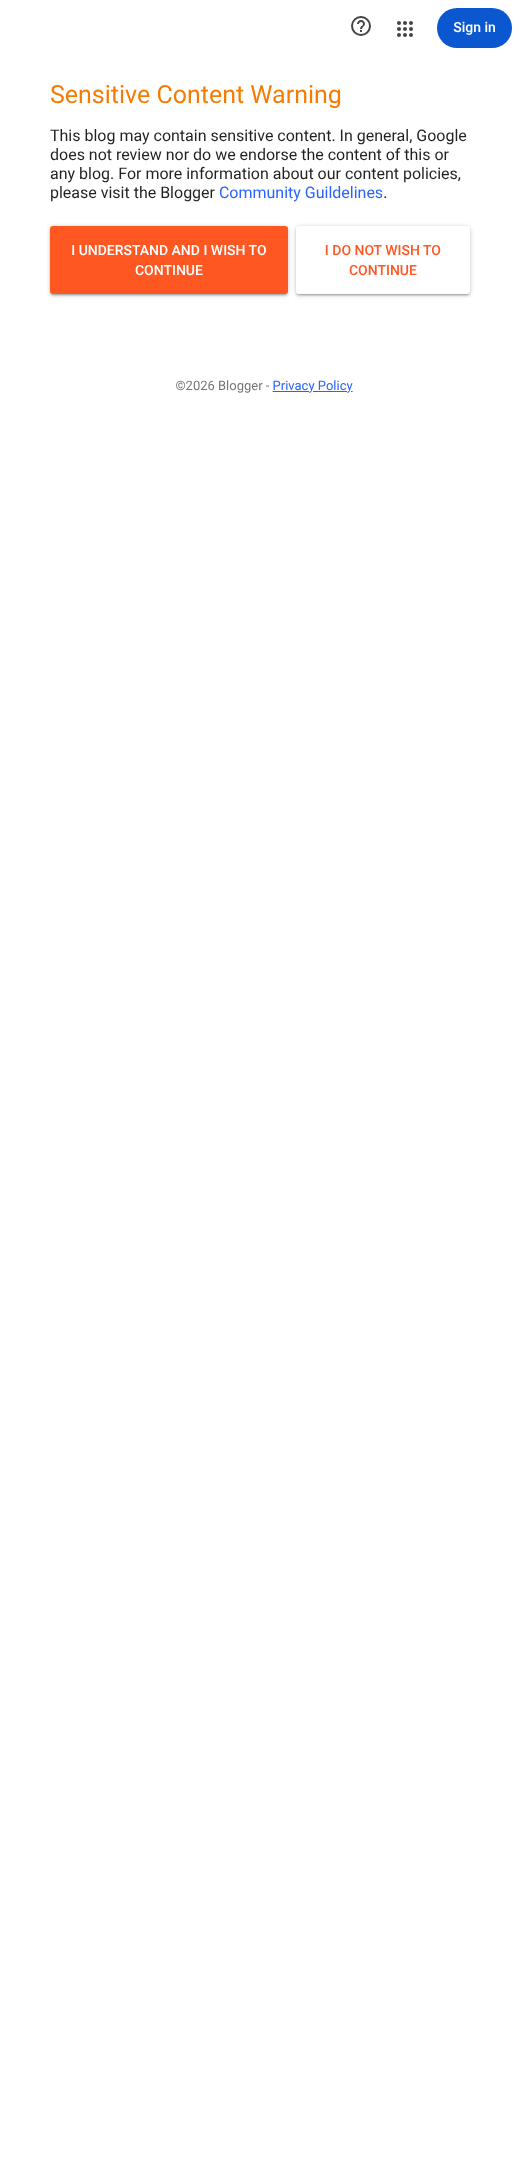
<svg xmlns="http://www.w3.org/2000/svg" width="528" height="2166">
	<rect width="100%" height="100%" fill="#FFFFFF" />
	<image x="47" y="8" width="465" height="385" href="assets/img1.png" />
</svg>
